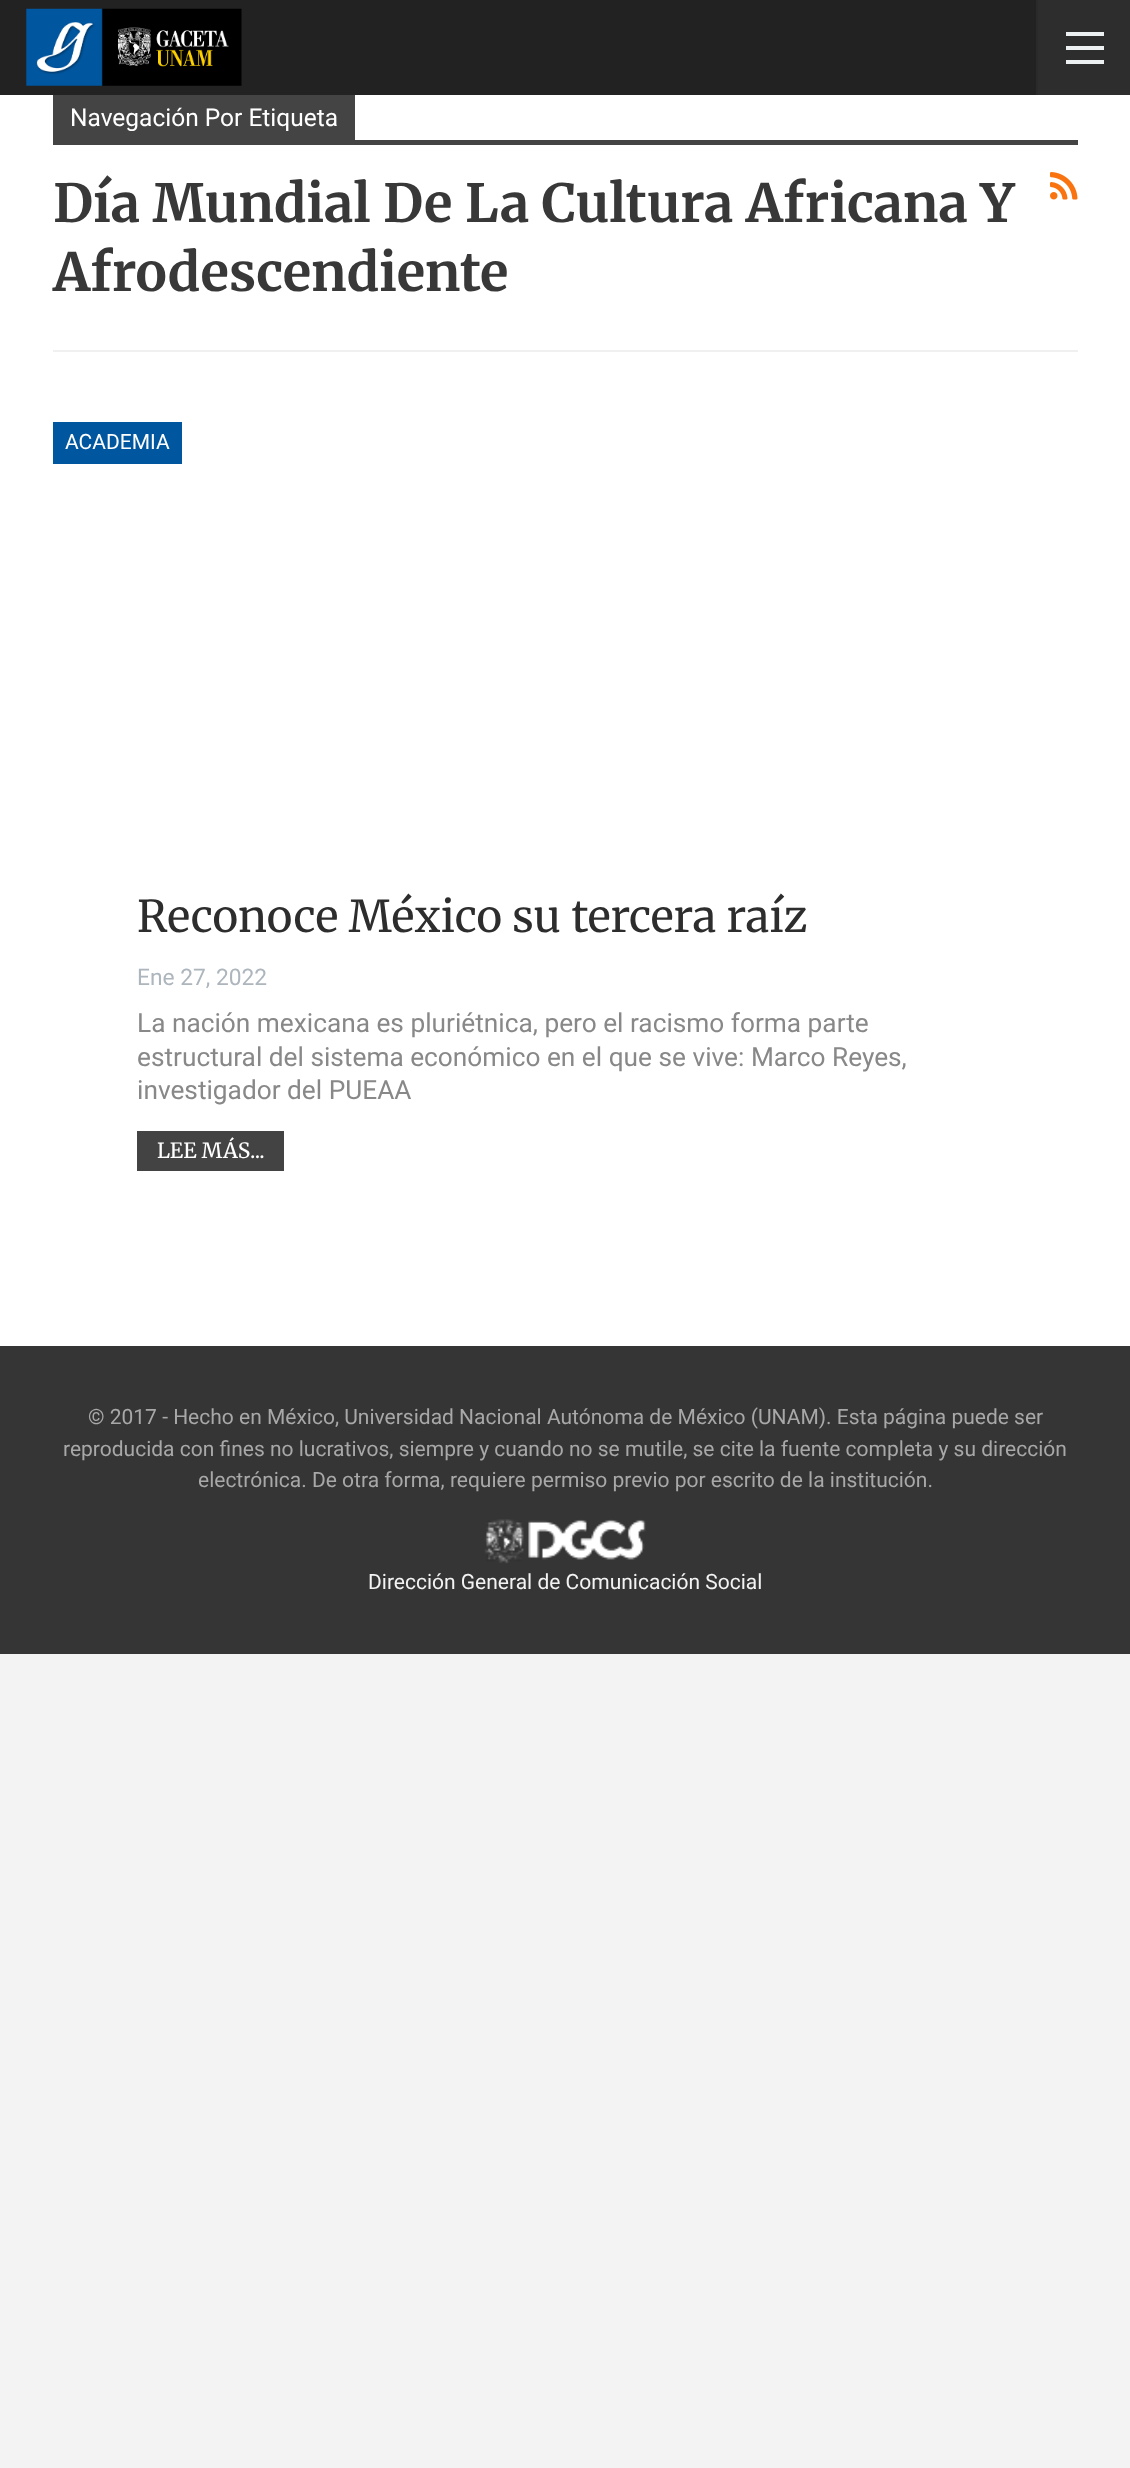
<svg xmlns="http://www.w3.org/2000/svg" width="1130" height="2468">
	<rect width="100%" height="100%" fill="#F3F3F3" />
	<rect x="0" y="95" width="1130" height="1251" fill="#FFFFFF" />
	<rect x="0" y="0" width="1036" height="95" fill="#222222" />
	<image x="26" y="8" width="216" height="78" href="assets/img1.png" />
	<rect x="1038" y="0" width="92" height="95" fill="#2D2D2D" />
	<rect x="1036" y="0" width="2" height="95" fill="#2A2A2A" />
	<rect x="1066" y="46" width="38" height="4" fill="#ECF0F1" />
	<rect x="1066" y="32" width="38" height="4" fill="#ECF0F1" />
	<rect x="1066" y="60" width="38" height="4" fill="#ECF0F1" />
	<rect x="53" y="350" width="1025" height="2" fill="#F0F0F0" />
	<rect x="53" y="95" width="302" height="45" fill="#444444" />
	<text x="70" y="126" font-family="Roboto" font-size="24.5" fill="#FFFFFF">Navegación Por Etiqueta</text>
	<rect x="53" y="140" width="1025" height="5" fill="#444444" />
	<g font-family="Merriweather" font-size="52.5" font-weight="700" fill="#383838">
		<text x="53" y="222">Día Mundial De La Cultura Africana Y</text>
		<text x="53" y="291">Afrodescendiente</text>
	</g>
	<image x="1050" y="172" width="28" height="28" href="assets/img2.png" />
	<rect x="53" y="422" width="129" height="42" fill="#00569F" />
	<text x="65" y="449" font-family="Roboto" font-size="21" fill="#FFFFFF">ACADEMIA</text>
	<text x="137" y="932" font-family="Merriweather" font-size="43.75" fill="#2D2D2D">Reconoce México su tercera raíz</text>
	<text x="137" y="985" font-family="Roboto" font-size="22.75" fill="#ADB5BD">Ene 27, 2022</text>
	<g font-family="Roboto" font-size="26.25" fill="#888888">
		<text x="137" y="1032">La nación mexicana es pluriétnica, pero el racismo forma parte</text>
		<text x="137" y="1066">estructural del sistema económico en el que se vive: Marco Reyes,</text>
		<text x="137" y="1099">investigador del PUEAA</text>
	</g>
	<rect x="137" y="1131" width="147" height="40" fill="#434343" />
	<text x="157" y="1158" font-family="Merriweather" font-size="21" fill="#FFFFFF">LEE MÁS...</text>
	<rect x="0" y="1346" width="1130" height="308" fill="#353535" />
	<g font-family="Roboto" font-size="21" fill="#A8A8A8">
		<text x="88" y="1424">© 2017 - Hecho en México, Universidad Nacional Autónoma de México (UNAM). Esta página puede ser</text>
		<text x="63" y="1456">reproducida con fines no lucrativos, siempre y cuando no se mutile, se cite la fuente completa y su dirección</text>
		<text x="198" y="1487">electrónica. De otra forma, requiere permiso previo por escrito de la institución.</text>
	</g>
	<image x="484" y="1519" width="162" height="45" href="assets/img3.png" />
	<text x="368" y="1589" font-family="Roboto" font-size="21" fill="#F3F3F3">Dirección General de Comunicación Social</text>
</svg>
